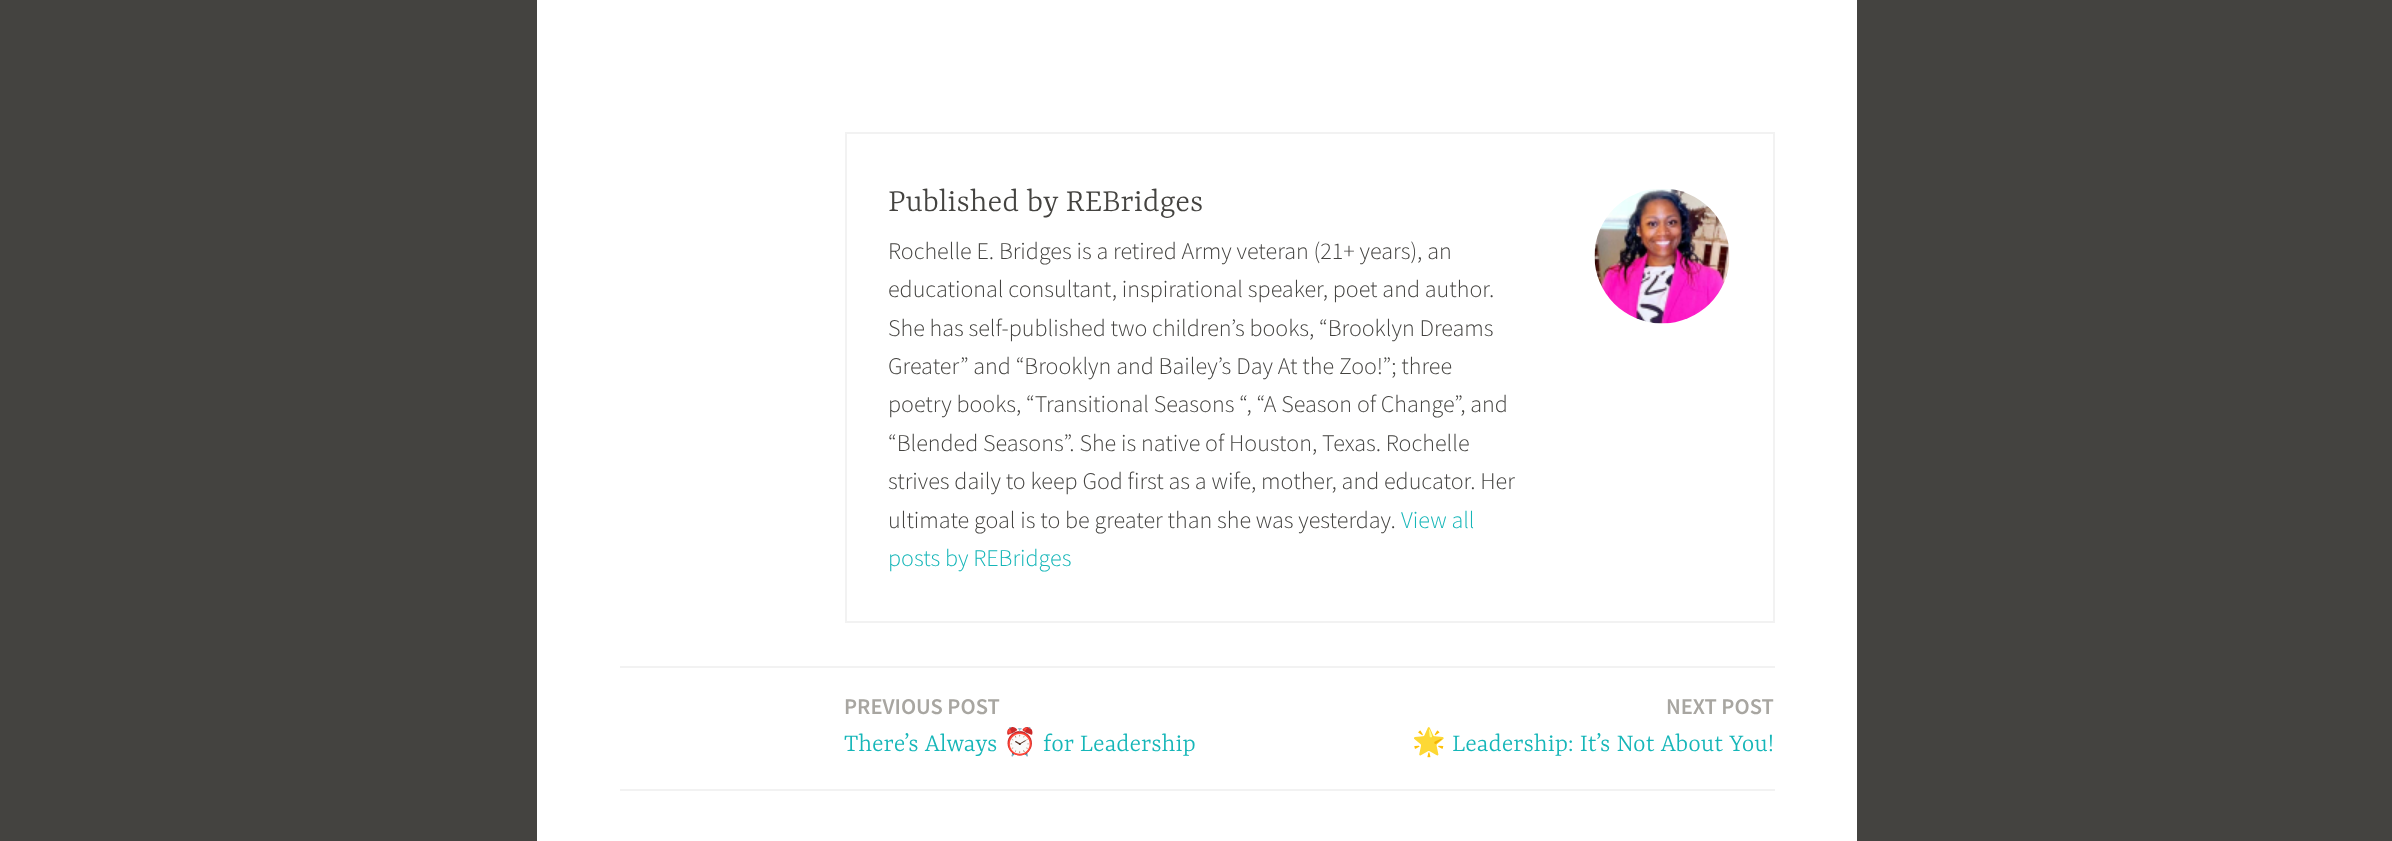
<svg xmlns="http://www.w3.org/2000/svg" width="2392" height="841">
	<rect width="100%" height="100%" fill="#444340" />
	<rect x="537" y="0" width="1320" height="841" fill="#FFFFFF" />
	<rect x="846" y="133" width="928" height="489" fill="none" stroke="#F2F2F2" stroke-width="2" />
	<text x="888" y="211" font-family="Yrsa" font-size="34.5" font-weight="300" fill="#444340">Published by REBridges</text>
	<image x="1594" y="189" width="136" height="135" href="assets/img1.png" />
	<g font-family="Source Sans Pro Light" font-size="24" font-weight="300" fill="#444340">
		<text x="888" y="259">Rochelle E. Bridges is a retired Army veteran (21+ years), an</text>
		<text x="888" y="297">educational consultant, inspirational speaker, poet and author.</text>
		<text x="888" y="336">She has self-published two children’s books, “Brooklyn Dreams</text>
		<text x="888" y="374">Greater” and “Brooklyn and Bailey’s Day At the Zoo!”; three</text>
		<text x="888" y="412">poetry books, “Transitional Seasons “, “A Season of Change”, and</text>
		<text x="888" y="451">“Blended Seasons”. She is native of Houston, Texas. Rochelle</text>
		<text x="888" y="489">strives daily to keep God first as a wife, mother, and educator. Her</text>
		<text x="888" y="528">ultimate goal is to be greater than she was yesterday.</text>
	</g>
	<g font-family="Source Sans Pro Light" font-size="24" font-weight="300" fill="#15B6B8">
		<text x="1401" y="528">View all</text>
		<text x="888" y="566">posts by REBridges</text>
	</g>
	<rect x="620" y="666" width="1155" height="2" fill="#F2F2F2" />
	<text x="844" y="714" font-family="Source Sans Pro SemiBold" font-size="22.5" font-weight="600" fill="#A8A6A1">PREVIOUS POST</text>
	<text x="844" y="751" font-family="Yrsa" font-size="27" font-weight="300" fill="#15B6B8">There’s Always</text>
	<text x="1003" y="751" font-family="Noto Color Emoji" font-size="27" fill="#15B6B8">⏰</text>
	<text x="1043" y="751" font-family="Yrsa" font-size="27" font-weight="300" fill="#15B6B8">for Leadership</text>
	<text x="1666" y="714" font-family="Source Sans Pro SemiBold" font-size="22.5" font-weight="600" fill="#A8A6A1">NEXT POST</text>
	<text x="1412" y="751" font-family="Noto Color Emoji" font-size="27" fill="#15B6B8">🌟</text>
	<text x="1452" y="751" font-family="Yrsa" font-size="27" font-weight="300" fill="#15B6B8">Leadership: It’s Not About You!</text>
	<rect x="620" y="789" width="1155" height="2" fill="#F2F2F2" />
</svg>
